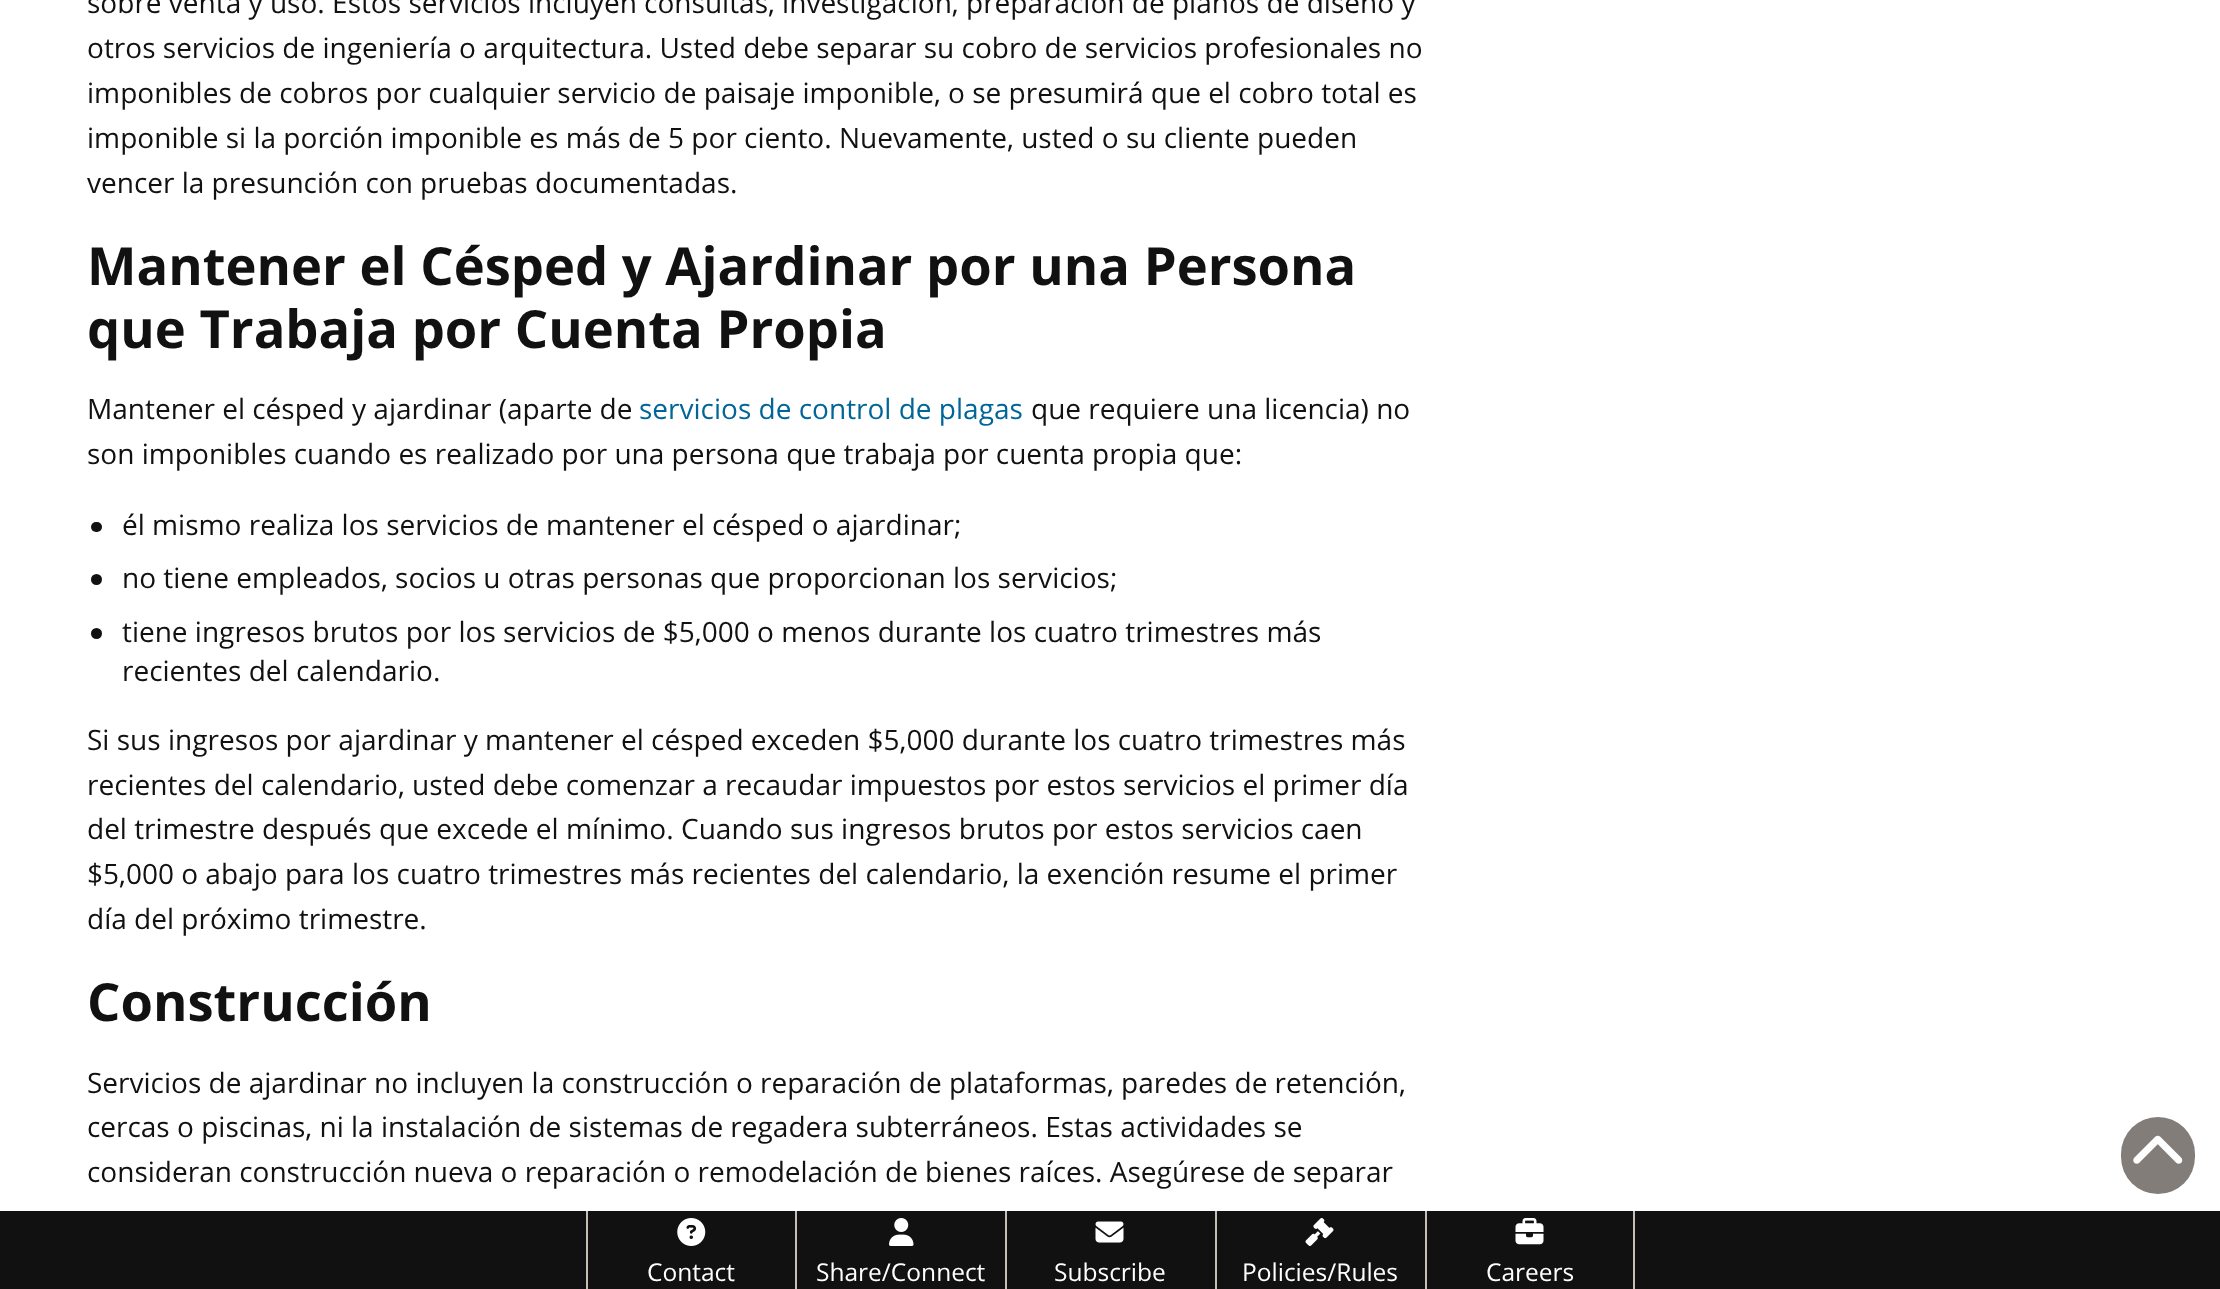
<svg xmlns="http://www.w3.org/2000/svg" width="2220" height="1289">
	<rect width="100%" height="100%" fill="#FFFFFF" />
	<g font-family="Open Sans" font-size="28" fill="#111111">
		<text x="87" y="13">sobre venta y uso. Estos servicios incluyen consultas, investigación, preparación de planos de diseño y</text>
		<text x="87" y="58">otros servicios de ingeniería o arquitectura. Usted debe separar su cobro de servicios profesionales no</text>
		<text x="87" y="103">imponibles de cobros por cualquier servicio de paisaje imponible, o se presumirá que el cobro total es</text>
		<text x="87" y="148">imponible si la porción imponible es más de 5 por ciento. Nuevamente, usted o su cliente pueden</text>
		<text x="87" y="193">vencer la presunción con pruebas documentadas.</text>
	</g>
	<g font-family="Open Sans" font-size="52.5" font-weight="700" fill="#111111">
		<text x="87" y="285">Mantener el Césped y Ajardinar por una Persona</text>
		<text x="87" y="348">que Trabaja por Cuenta Propia</text>
	</g>
	<text x="87" y="419" font-family="Open Sans" font-size="28" fill="#111111">Mantener el césped y ajardinar (aparte de</text>
	<text x="639" y="419" font-family="Open Sans" font-size="28" fill="#006699">servicios de control de plagas</text>
	<g font-family="Open Sans" font-size="28" fill="#111111">
		<text x="1031" y="419">que requiere una licencia) no</text>
		<text x="87" y="464">son imponibles cuando es realizado por una persona que trabaja por cuenta propia que:</text>
	</g>
	<rect x="91" y="522" width="11" height="10" rx="5" fill="#111111" />
	<text x="122" y="535" font-family="Open Sans" font-size="28" fill="#111111">él mismo realiza los servicios de mantener el césped o ajardinar;</text>
	<circle cx="96.5" cy="579.5" r="5.5" fill="#111111" />
	<text x="122" y="588" font-family="Open Sans" font-size="28" fill="#111111">no tiene empleados, socios u otras personas que proporcionan los servicios;</text>
	<circle cx="96.5" cy="633.5" r="5.5" fill="#111111" />
	<g font-family="Open Sans" font-size="28" fill="#111111">
		<text x="122" y="642">tiene ingresos brutos por los servicios de $5,000 o menos durante los cuatro trimestres más</text>
		<text x="122" y="681">recientes del calendario.</text>
		<text x="87" y="750">Si sus ingresos por ajardinar y mantener el césped exceden $5,000 durante los cuatro trimestres más</text>
		<text x="87" y="795">recientes del calendario, usted debe comenzar a recaudar impuestos por estos servicios el primer día</text>
		<text x="87" y="839">del trimestre después que excede el mínimo. Cuando sus ingresos brutos por estos servicios caen</text>
		<text x="87" y="884">$5,000 o abajo para los cuatro trimestres más recientes del calendario, la exención resume el primer</text>
		<text x="87" y="929">día del próximo trimestre.</text>
	</g>
	<text x="87" y="1021" font-family="Open Sans" font-size="52.5" font-weight="700" fill="#111111">Construcción</text>
	<g font-family="Open Sans" font-size="28" fill="#111111">
		<text x="87" y="1093">Servicios de ajardinar no incluyen la construcción o reparación de plataformas, paredes de retención,</text>
		<text x="87" y="1137">cercas o piscinas, ni la instalación de sistemas de regadera subterráneos. Estas actividades se</text>
		<text x="87" y="1182">consideran construcción nueva o reparación o remodelación de bienes raíces. Asegúrese de separar</text>
	</g>
	<rect x="2121" y="1117" width="74" height="77" rx="37" fill="#837D7A" />
	<image x="2133" y="1135" width="50" height="29" href="assets/img1.png" />
	<rect x="0" y="1211" width="2220" height="78" fill="#111111" />
	<rect x="795" y="1211" width="2" height="78" fill="#C5BFB5" />
	<rect x="586" y="1211" width="2" height="78" fill="#C5BFB5" />
	<image x="677" y="1218" width="29" height="28" href="assets/img2.png" />
	<text x="647" y="1281" font-family="Open Sans" font-size="24.5" fill="#FFFFFF">Contact</text>
	<rect x="1005" y="1211" width="2" height="78" fill="#C5BFB5" />
	<image x="889" y="1218" width="25" height="28" href="assets/img3.png" />
	<text x="816" y="1281" font-family="Open Sans" font-size="24.5" fill="#FFFFFF">Share/Connect</text>
	<rect x="1215" y="1211" width="2" height="78" fill="#C5BFB5" />
	<image x="1095" y="1221" width="29" height="22" href="assets/img4.png" />
	<text x="1054" y="1281" font-family="Open Sans" font-size="24.5" fill="#FFFFFF">Subscribe</text>
	<rect x="1425" y="1211" width="2" height="78" fill="#C5BFB5" />
	<image x="1305" y="1218" width="29" height="28" href="assets/img5.png" />
	<text x="1242" y="1281" font-family="Open Sans" font-size="24.5" fill="#FFFFFF">Policies/Rules</text>
	<rect x="1633" y="1211" width="2" height="78" fill="#C5BFB5" />
	<image x="1515" y="1218" width="29" height="27" href="assets/img6.png" />
	<text x="1486" y="1281" font-family="Open Sans" font-size="24.5" fill="#FFFFFF">Careers</text>
</svg>
